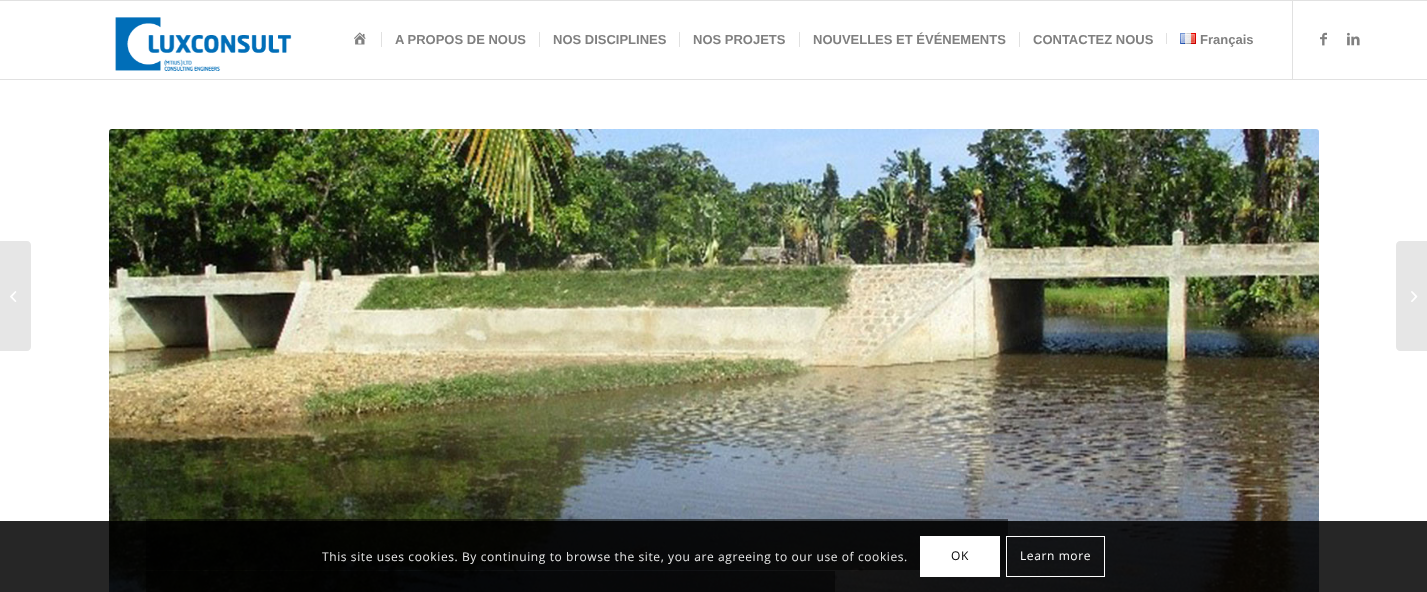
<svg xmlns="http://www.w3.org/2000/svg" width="1427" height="592">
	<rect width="100%" height="100%" fill="#FFFFFF" />
	<rect x="0" y="0" width="1427" height="1" fill="#E1E1E1" />
	<rect x="0" y="79" width="1427" height="1" fill="#E1E1E1" />
	<image x="115" y="17" width="177" height="54" href="assets/img1.png" />
	<rect x="1292" y="1" width="1" height="78" fill="#E1E1E1" />
	<image x="354" y="32" width="12" height="13" href="assets/img2.png" />
	<text x="395" y="44" font-family="Liberation Sans" font-size="13" font-weight="700" fill="#808080">A PROPOS DE NOUS</text>
	<rect x="381" y="32" width="1" height="15" fill="#E1E1E1" />
	<text x="553" y="44" font-family="Liberation Sans" font-size="13" font-weight="700" fill="#808080">NOS DISCIPLINES</text>
	<rect x="539" y="32" width="1" height="15" fill="#E1E1E1" />
	<text x="693" y="44" font-family="Liberation Sans" font-size="13" font-weight="700" fill="#808080">NOS PROJETS</text>
	<rect x="679" y="32" width="1" height="15" fill="#E1E1E1" />
	<text x="813" y="44" font-family="Liberation Sans" font-size="13" font-weight="700" fill="#808080">NOUVELLES ET ÉVÉNEMENTS</text>
	<rect x="799" y="32" width="1" height="15" fill="#E1E1E1" />
	<text x="1033" y="44" font-family="Liberation Sans" font-size="13" font-weight="700" fill="#808080">CONTACTEZ NOUS</text>
	<rect x="1019" y="32" width="1" height="15" fill="#E1E1E1" />
	<rect x="1166" y="33" width="1" height="11" fill="#E1E1E1" />
	<image x="1180" y="33" width="16" height="11" href="assets/img3.png" />
	<text x="1200" y="44" font-family="Liberation Sans" font-size="13" font-weight="700" fill="#808080">Français</text>
	<image x="1320" y="32" width="7" height="14" href="assets/img4.png" />
	<image x="1347" y="32" width="13" height="14" href="assets/img5.png" />
	<path d="M0 241H27C29 241 31 243 31 245V347C31 349 29 351 27 351H0Z" fill="#E6E6E6" />
	<image x="10" y="291" width="7" height="11" href="assets/img6.png" />
	<image x="109" y="129" width="1210" height="463" href="assets/img7.png" />
	<rect x="146" y="519" width="862" height="51" fill="#000000" fill-opacity="0.5" />
	<rect x="146" y="571" width="689" height="21" fill="#000000" fill-opacity="0.5" />
	<path d="M1400 241H1427V351H1400C1398 351 1396 349 1396 347V245C1396 243 1398 241 1400 241Z" fill="#E6E6E6" />
	<image x="1411" y="291" width="7" height="11" href="assets/img8.png" />
	<rect x="0" y="521" width="1427" height="71" fill="#000000" fill-opacity="0.85" />
	<text x="322" y="561" font-family="Open Sans" font-size="12" letter-spacing="0.6" fill="#E6E6E6">This site uses cookies. By continuing to browse the site, you are agreeing to our use of cookies.</text>
	<rect x="920" y="536" width="80" height="41" fill="#FFFFFF" />
	<text x="951" y="560" font-family="Open Sans" font-size="12" letter-spacing="0.6" fill="#000000">OK</text>
	<rect x="1006.5" y="536.5" width="98" height="40" fill="none" stroke="#FFFFFF" />
	<text x="1020" y="560" font-family="Open Sans" font-size="12" letter-spacing="0.6" fill="#FFFFFF">Learn more</text>
</svg>
